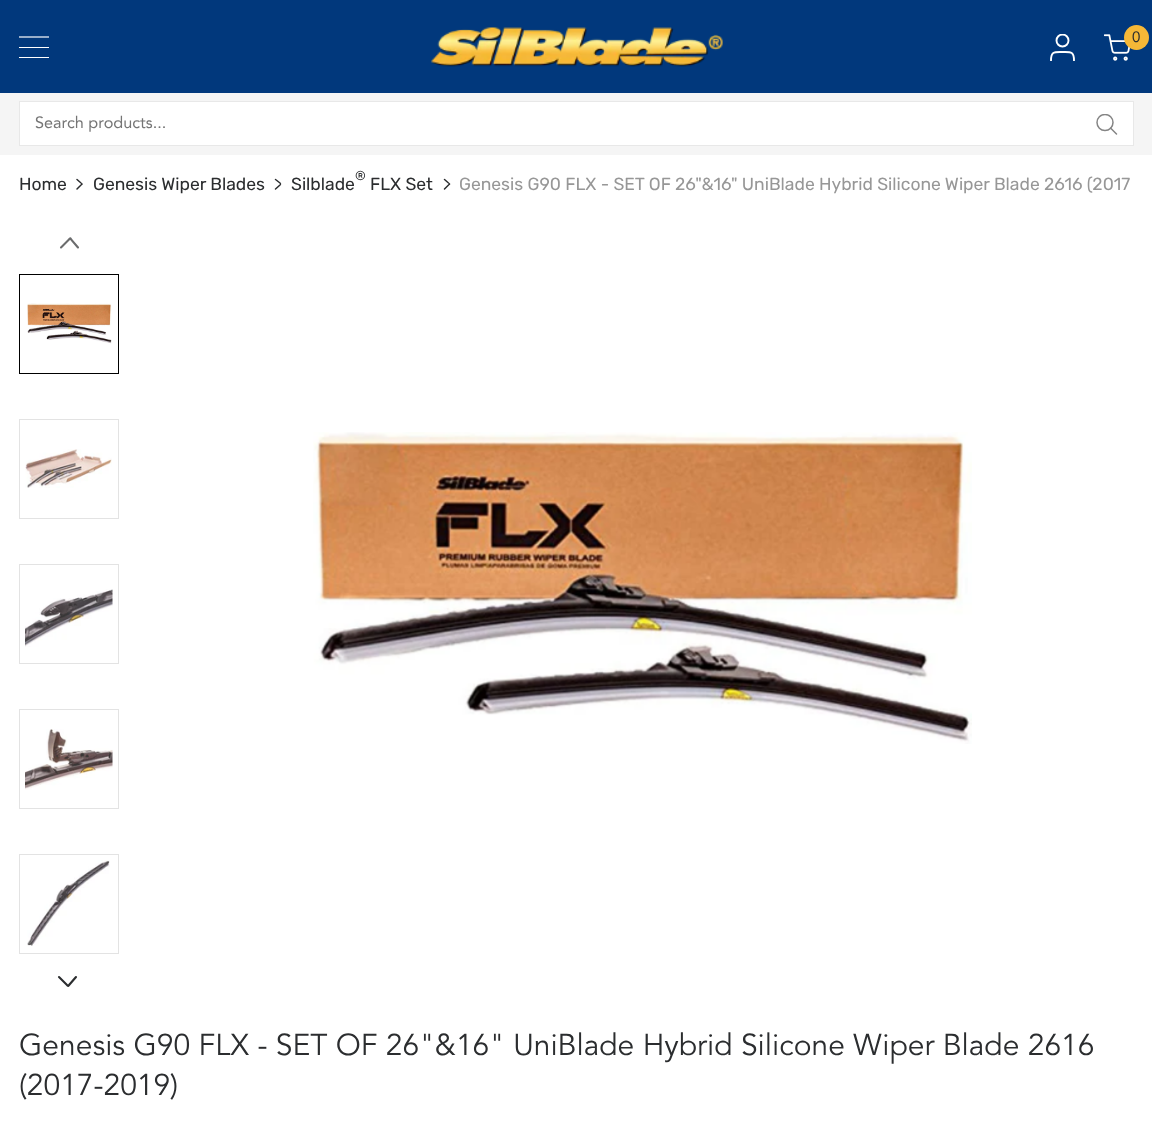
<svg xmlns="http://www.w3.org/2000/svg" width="1152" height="1122">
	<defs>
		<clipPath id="clip1"><rect x="1049" y="34" width="27" height="27" /></clipPath>
		<clipPath id="clip2"><rect x="1096" y="114" width="22" height="21" /></clipPath>
	</defs>
	<rect width="100%" height="100%" fill="#FFFFFF" />
	<rect x="0" y="0" width="1152" height="93" fill="#01387C" />
	<rect x="19" y="57" width="30" height="1" fill="#FFFFFF" />
	<rect x="19" y="47" width="30" height="1" fill="#FFFFFF" />
	<path d="M19 37H49" fill="none" stroke="#FFFFFF" stroke-width="1.2" />
	<image x="431" y="27" width="292" height="40" href="assets/img1.png" />
	<g clip-path="url(#clip1)">
		<circle cx="1062.5" cy="40.5" r="6" fill="none" stroke="#FFFFFF" stroke-width="1.9" />
		<path d="M1074 60.5C1074 51 1070.5 52 1062.5 52C1054.5 52 1051 51 1051 60.5" fill="none" stroke="#FFFFFF" stroke-width="1.9" stroke-linecap="round" stroke-linejoin="round" />
	</g>
	<image x="1104" y="34" width="26" height="27" href="assets/img2.png" />
	<circle cx="1136.5" cy="37.5" r="12.5" fill="#F6B837" />
	<text x="1132" y="42" font-family="Avenir" font-size="15" fill="#2B2D2F">0</text>
	<rect x="0" y="93" width="1152" height="62" fill="#F5F5F5" />
	<rect x="19.5" y="101.5" width="1114" height="44" fill="#FFFFFF" stroke="#E8E8E8" />
	<text x="35" y="128" font-family="Avenir" font-size="16.25" fill="#757575">Search products...</text>
	<g clip-path="url(#clip2)">
		<circle cx="1105" cy="122.5" r="8" fill="none" stroke="#858585" stroke-width="1.5" />
	</g>
	<path d="M1116.5 134L1110.5 128" fill="none" stroke="#858585" stroke-width="1.5" stroke-linecap="round" stroke-linejoin="round" />
	<text x="19" y="190" font-family="Rubik" font-size="17.5" fill="#2B2D2F">Home</text>
	<path d="M77 179.5L81 183C82.5 184 82.5 184 81 185L77 189" fill="none" stroke="#2B2D2F" stroke-width="1.5" stroke-linecap="round" />
	<text x="93" y="190" font-family="Rubik" font-size="17.5" fill="#2B2D2F">Genesis Wiper Blades</text>
	<path d="M275.5 179.5L280 183C281 184 281 184 280 185L275.5 189" fill="none" stroke="#2B2D2F" stroke-width="1.5" stroke-linecap="round" />
	<text x="355" y="180" font-family="Rubik" font-size="13" fill="#2B2D2F">®</text>
	<g font-family="Rubik" font-size="17.5" fill="#2B2D2F">
		<text x="291" y="190">Silblade</text>
		<text x="370" y="190">FLX Set</text>
	</g>
	<path d="M444.5 179.5L448.5 183C450 184 450 184 448.5 185L444.5 189" fill="none" stroke="#2B2D2F" stroke-width="1.5" stroke-linecap="round" />
	<text x="459" y="190" font-family="Rubik" font-size="17.5" fill="#979797">Genesis G90 FLX - SET OF 26"&amp;16" UniBlade Hybrid Silicone Wiper Blade 2616 (2017</text>
	<path d="M78 247.5L71.5 240C70 237.5 70.5 238 68.5 240L61 247.5" fill="none" stroke="#6B6C6D" stroke-width="2.1" stroke-linecap="round" />
	<path d="M76 977L69.5 984.5C68 986.5 68.5 986.5 66.5 984.5L59 977" fill="none" stroke="#2B2D2F" stroke-width="2.1" stroke-linecap="round" />
	<rect x="19.5" y="274.5" width="99" height="99" fill="none" stroke="#000000" />
	<image x="27" y="303" width="85" height="41" href="assets/img3.png" />
	<rect x="19.5" y="419.5" width="99" height="99" fill="none" stroke="#E3E3E3" />
	<image x="25" y="449" width="87" height="39" href="assets/img4.png" />
	<rect x="19.5" y="564.5" width="99" height="99" fill="none" stroke="#E3E3E3" />
	<image x="25" y="589" width="88" height="58" href="assets/img5.png" />
	<rect x="19.5" y="709.5" width="99" height="99" fill="none" stroke="#E3E3E3" />
	<image x="25" y="729" width="88" height="61" href="assets/img6.png" />
	<rect x="19.5" y="854.5" width="99" height="99" fill="none" stroke="#E3E3E3" />
	<image x="27" y="860" width="83" height="86" href="assets/img7.png" />
	<image x="313" y="432" width="659" height="312" href="assets/img8.png" />
	<g font-family="'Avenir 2'" font-size="30" fill="#2B2D2F">
		<text x="19" y="1055">Genesis G90 FLX - SET OF 26"&amp;16" UniBlade Hybrid Silicone Wiper Blade 2616</text>
		<text x="19" y="1095">(2017-2019)</text>
	</g>
</svg>
